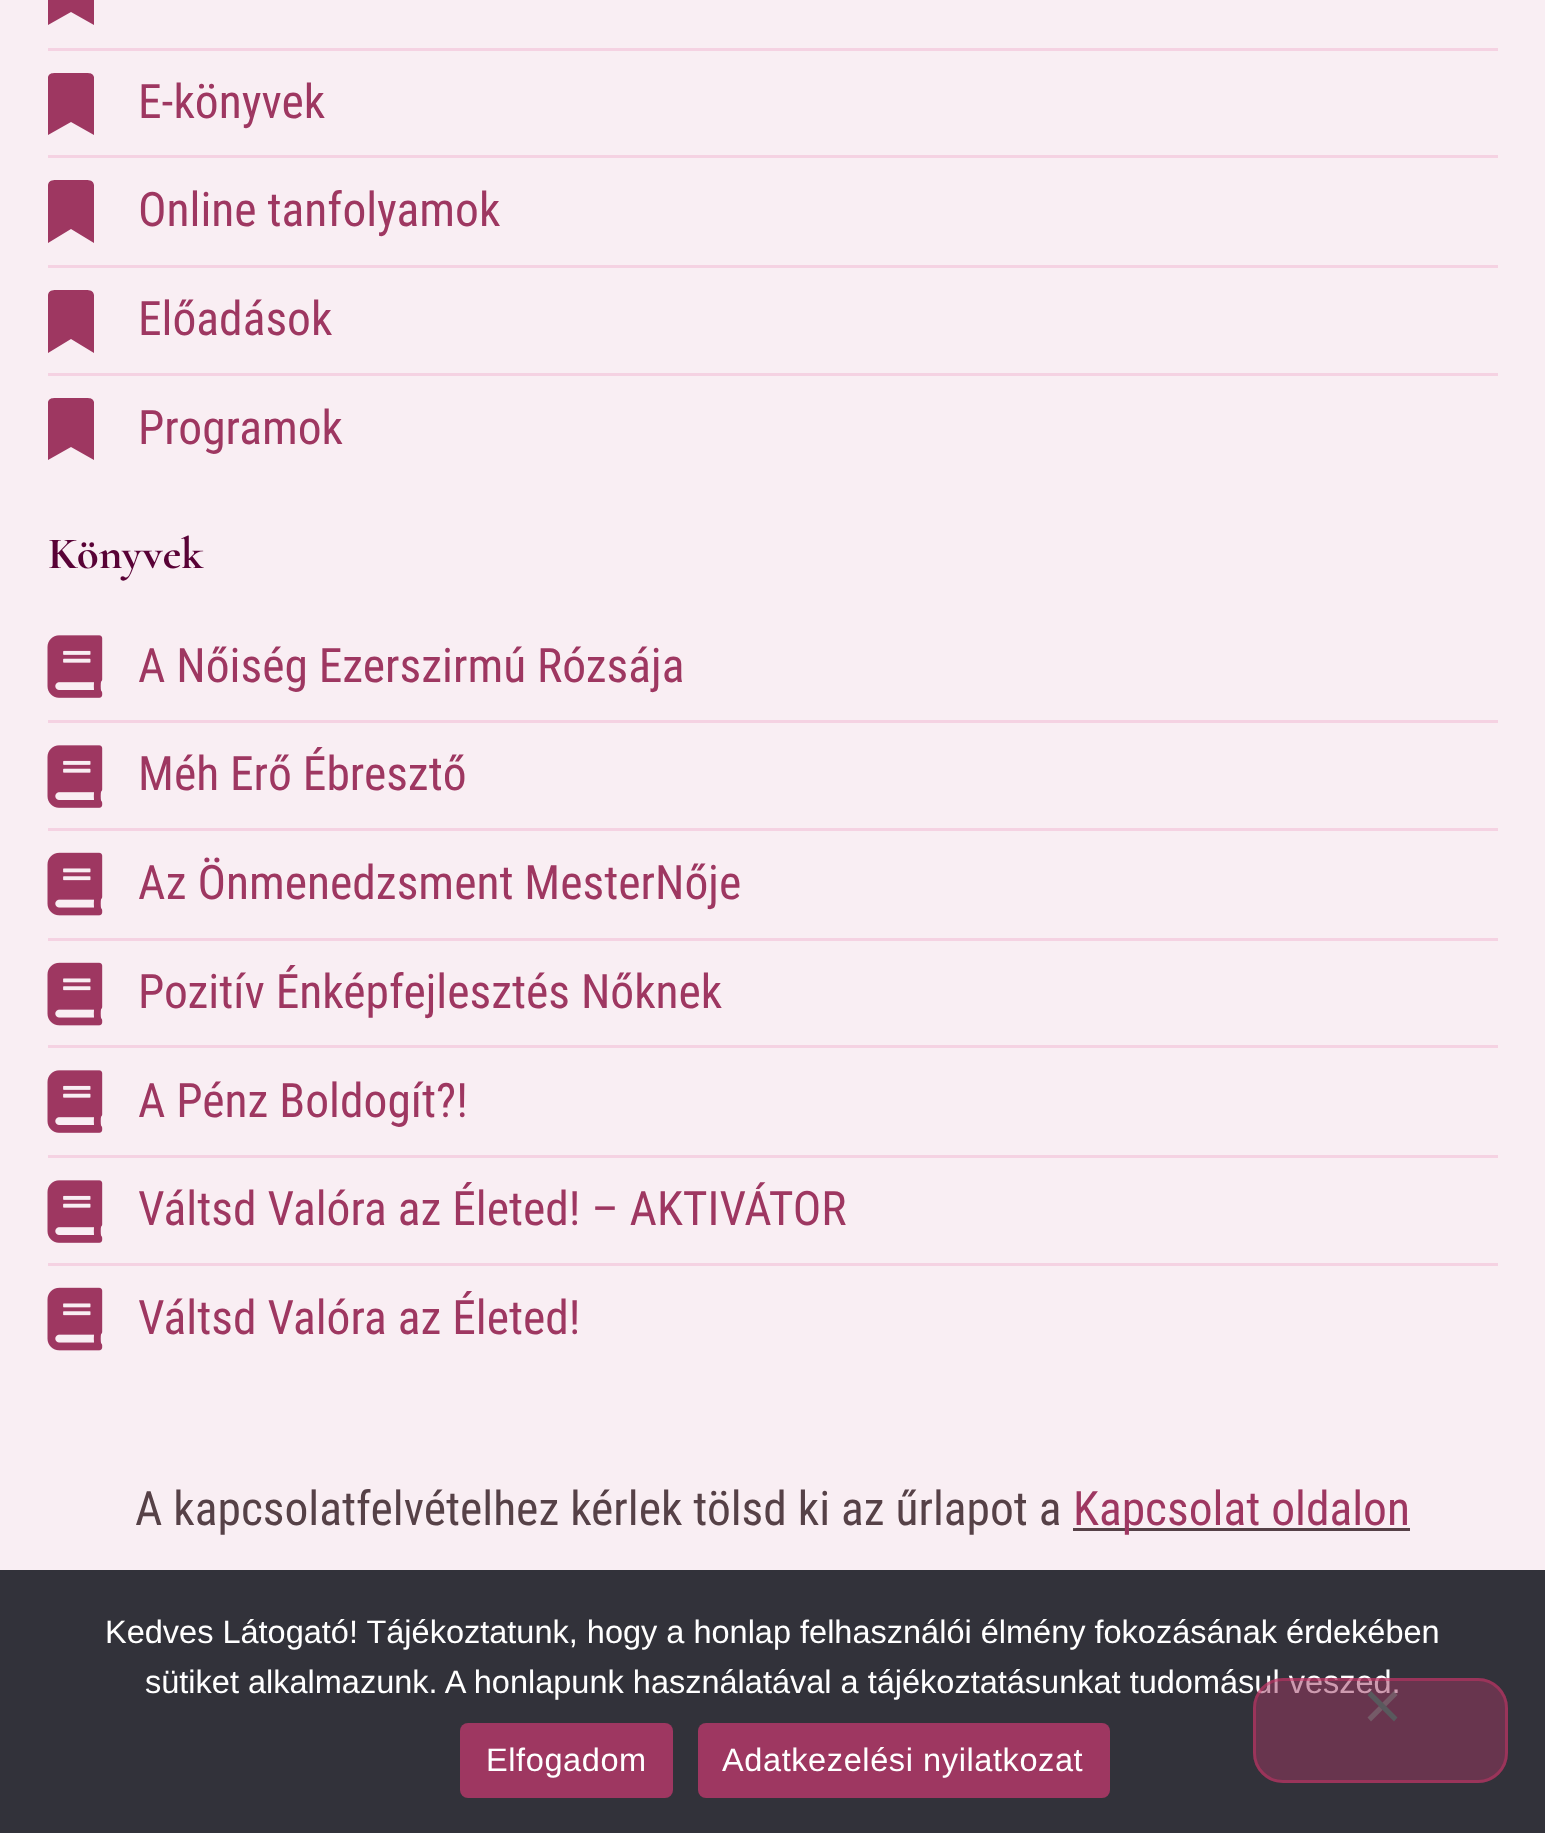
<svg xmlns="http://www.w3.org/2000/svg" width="1545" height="1833">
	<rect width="100%" height="100%" fill="#F9EEF3" />
	<path d="M48 25V-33C49-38 55-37 59-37H83C87-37 93-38 94-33V25L71 12Z" fill="#9E3761" />
	<rect x="48" y="48" width="1450" height="3" fill="#F5D2E2" />
	<path d="M48 135V77C49 72 55 73 59 73H83C87 73 93 72 94 77V135L71 122Z" fill="#9E3761" />
	<text x="138" y="118" font-family="Roboto Condensed" font-size="47.5" fill="#9E3761">E-könyvek</text>
	<rect x="48" y="155" width="1450" height="3" fill="#F5D2E2" />
	<path d="M48 243V185C49 179 55 180 59 180H83C87 180 93 179 94 185V243L71 229Z" fill="#9E3761" />
	<text x="138" y="226" font-family="Roboto Condensed" font-size="47.5" fill="#9E3761">Online tanfolyamok</text>
	<rect x="48" y="265" width="1450" height="3" fill="#F5D2E2" />
	<path d="M48 353V295C49 289 55 290 59 290H83C87 290 93 289 94 295V353L71 339Z" fill="#9E3761" />
	<text x="138" y="335" font-family="Roboto Condensed" font-size="47.5" fill="#9E3761">Előadások</text>
	<rect x="48" y="373" width="1450" height="3" fill="#F5D2E2" />
	<path d="M48 460V402C49 397 55 398 59 398H83C87 398 93 397 94 402V460L71 447Z" fill="#9E3761" />
	<text x="138" y="444" font-family="Roboto Condensed" font-size="47.5" fill="#9E3761">Programok</text>
	<text x="48" y="568" font-family="Cormorant" font-size="45" font-weight="700" fill="#590236">Könyvek</text>
	<image x="47" y="635" width="56" height="63" href="assets/img1.png" />
	<text x="138" y="682" font-family="Roboto Condensed" font-size="47.5" fill="#9E3761">A Nőiség Ezerszirmú Rózsája</text>
	<rect x="48" y="720" width="1450" height="3" fill="#F5D2E2" />
	<image x="47" y="745" width="56" height="63" href="assets/img1.png" />
	<text x="138" y="790" font-family="Roboto Condensed" font-size="47.5" fill="#9E3761">Méh Erő Ébresztő</text>
	<rect x="48" y="828" width="1450" height="3" fill="#F5D2E2" />
	<image x="47" y="852" width="56" height="64" href="assets/img2.png" />
	<text x="138" y="899" font-family="Roboto Condensed" font-size="47.5" fill="#9E3761">Az Önmenedzsment MesterNője</text>
	<rect x="48" y="938" width="1450" height="3" fill="#F5D2E2" />
	<image x="47" y="962" width="56" height="64" href="assets/img2.png" />
	<text x="138" y="1008" font-family="Roboto Condensed" font-size="47.5" fill="#9E3761">Pozitív Énképfejlesztés Nőknek</text>
	<rect x="48" y="1045" width="1450" height="3" fill="#F5D2E2" />
	<image x="47" y="1070" width="56" height="63" href="assets/img1.png" />
	<text x="138" y="1117" font-family="Roboto Condensed" font-size="47.5" fill="#9E3761">A Pénz Boldogít?!</text>
	<rect x="48" y="1155" width="1450" height="3" fill="#F5D2E2" />
	<image x="47" y="1180" width="56" height="63" href="assets/img1.png" />
	<text x="138" y="1225" font-family="Roboto Condensed" font-size="47.5" fill="#9E3761">Váltsd Valóra az Életed! – AKTIVÁTOR</text>
	<rect x="48" y="1263" width="1450" height="3" fill="#F5D2E2" />
	<image x="47" y="1287" width="56" height="64" href="assets/img2.png" />
	<text x="138" y="1334" font-family="Roboto Condensed" font-size="47.5" fill="#9E3761">Váltsd Valóra az Életed!</text>
	<text x="135" y="1525" font-family="Roboto Condensed" font-size="47.5" fill="#564147">A kapcsolatfelvételhez kérlek tölsd ki az űrlapot a</text>
	<rect x="1073" y="1528" width="337" height="3" fill="#564147" />
	<text x="1073" y="1525" font-family="Roboto Condensed" font-size="47.5" fill="#9E3761">Kapcsolat oldalon</text>
	<rect x="0" y="1570" width="1545" height="263" fill="#32323A" />
	<g font-family="Liberation Sans" font-size="32.5" fill="#FFFFFF">
		<text x="105" y="1643">Kedves Látogató! Tájékoztatunk, hogy a honlap felhasználói élmény fokozásának érdekében</text>
		<text x="145" y="1693">sütiket alkalmazunk. A honlapunk használatával a tájékoztatásunkat tudomásul veszed.</text>
	</g>
	<rect x="460" y="1723" width="213" height="75" rx="8" fill="#9E3761" />
	<text x="486" y="1771" font-family="Liberation Sans" font-size="32.5" letter-spacing="0.6" fill="#FFFFFF">Elfogadom</text>
	<rect x="698" y="1723" width="412" height="75" rx="8" fill="#9E3761" />
	<text x="722" y="1771" font-family="Liberation Sans" font-size="32.5" letter-spacing="0.6" fill="#FFFFFF">Adatkezelési nyilatkozat</text>
	<rect x="1253" y="1678" width="255" height="105" rx="30" fill="#9E3761" fill-opacity="0.5" />
	<rect x="1254.5" y="1679.5" width="252" height="102" rx="28.5" fill="none" stroke="#CC3366" stroke-opacity="0.5" stroke-width="3" />
	<path d="M1394 1691L1397.5 1695L1371 1721.5L1367.5 1717.5Z" fill="#808080" fill-opacity="0.5" />
	<path d="M1367.5 1695L1371 1691L1397.5 1717.5L1394 1721.5Z" fill="#59595D" />
</svg>
